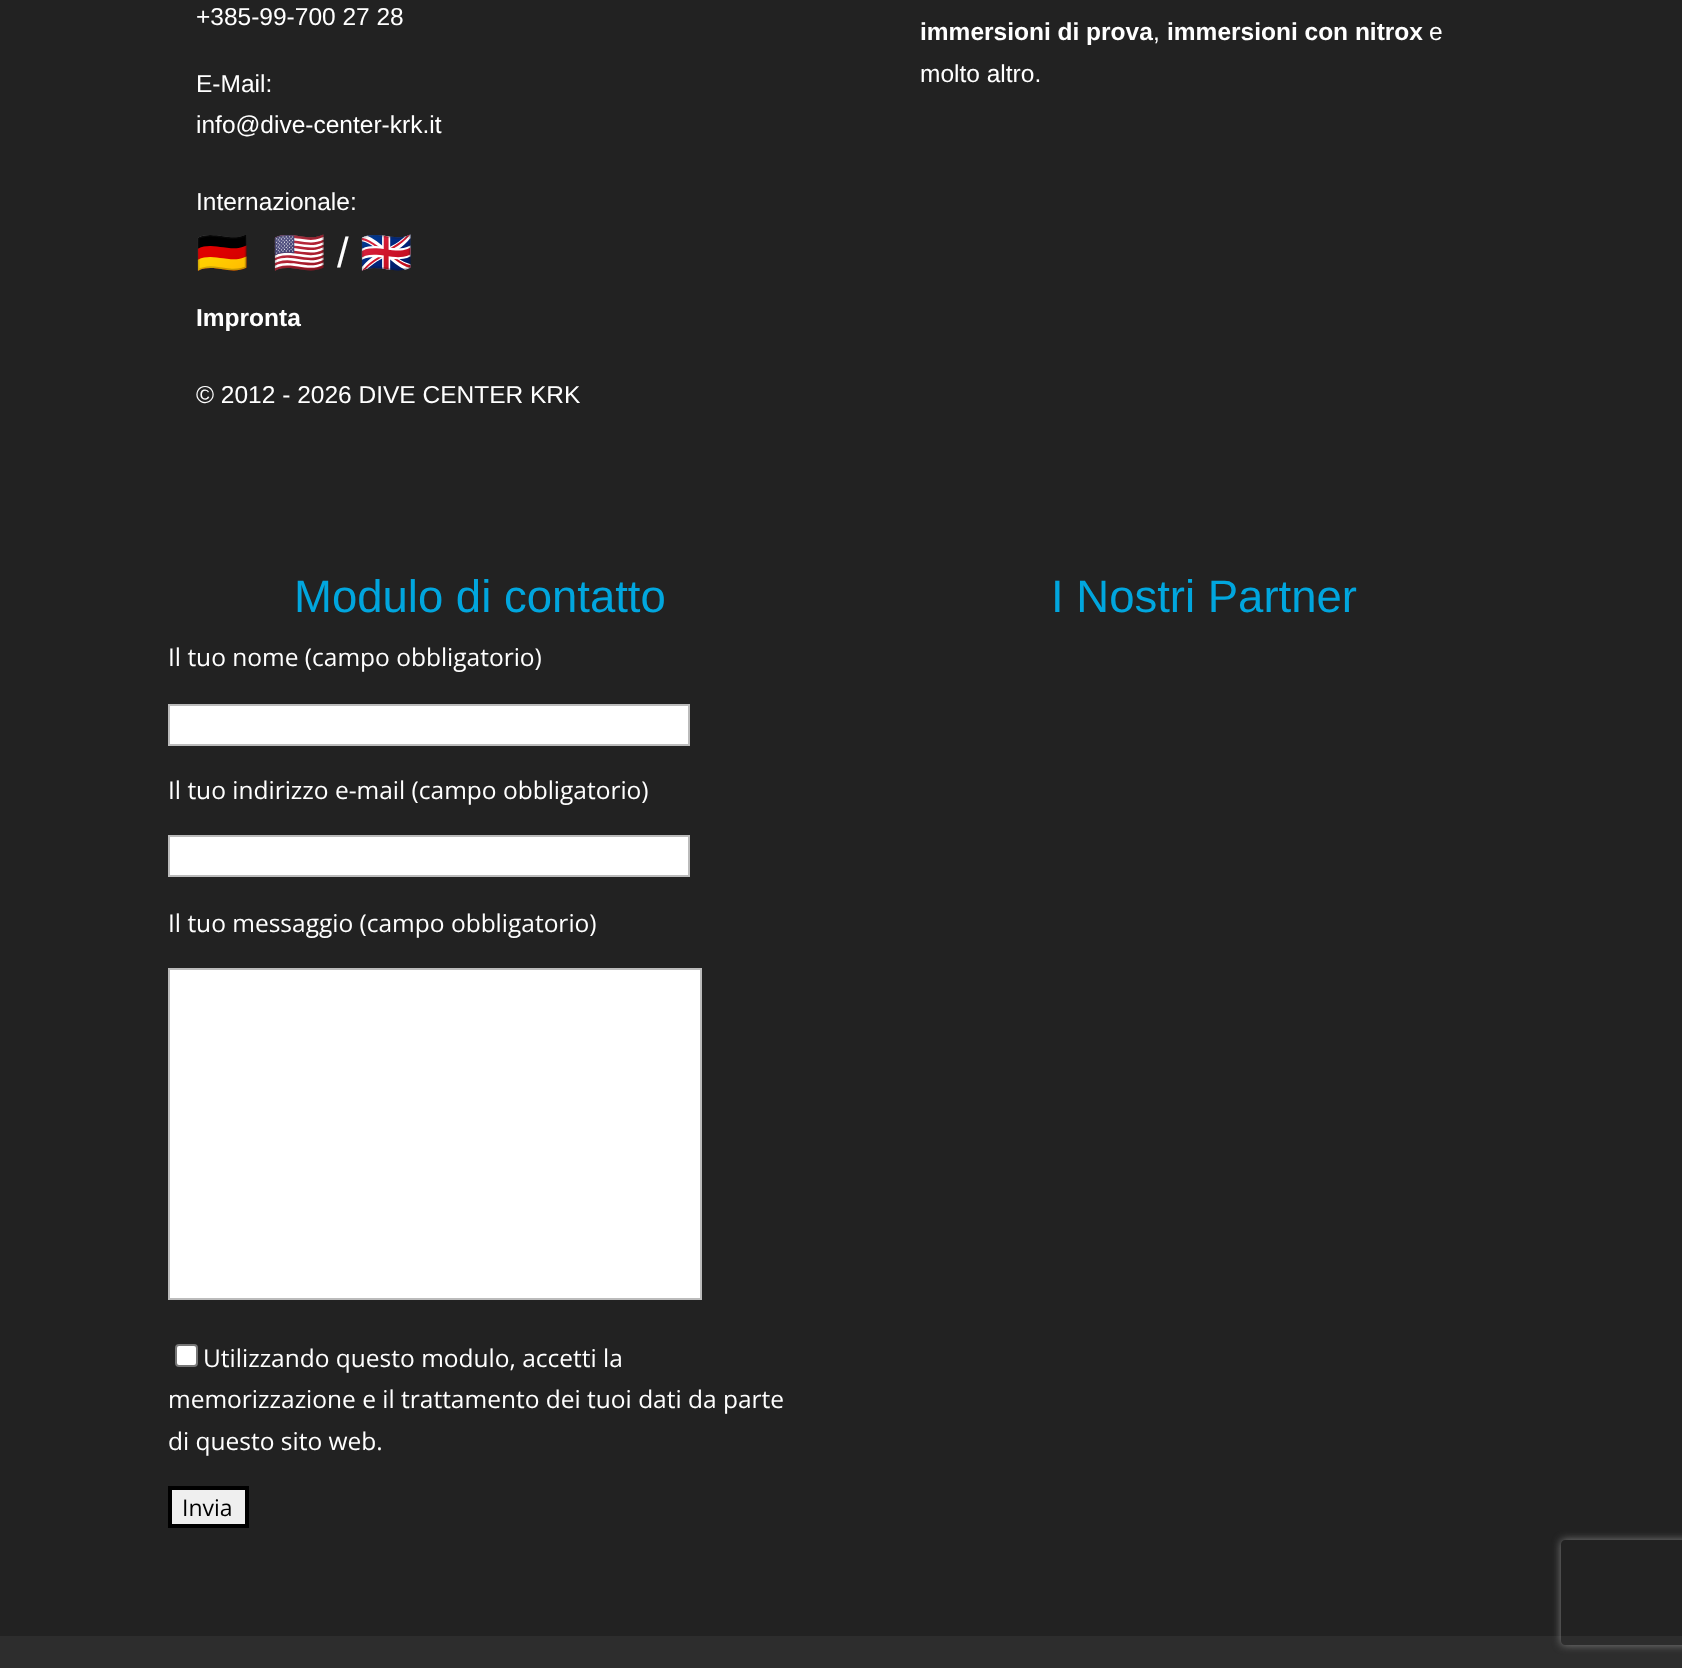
<svg xmlns="http://www.w3.org/2000/svg" width="1682" height="1668">
	<defs>
		<clipPath id="clip1"><path d="M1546 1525H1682V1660H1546ZM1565 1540H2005C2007 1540 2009 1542 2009 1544V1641C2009 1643 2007 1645 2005 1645H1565C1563 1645 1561 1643 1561 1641V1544C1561 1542 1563 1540 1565 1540Z" clip-rule="evenodd" /></clipPath>
	</defs>
	<rect width="100%" height="100%" fill="#222222" />
	<g font-family="Liberation Sans" font-size="24.5" fill="#FFFFFF">
		<text x="196" y="25">+385-99-700 27 28</text>
		<text x="196" y="92">E-Mail:</text>
		<text x="196" y="133">info@dive-center-krk.it</text>
		<text x="196" y="210">Internazionale:</text>
	</g>
	<g font-family="Noto Color Emoji" font-size="42" fill="#FFFFFF">
		<text x="196" y="267">🇩🇪</text>
		<text x="273" y="267">🇺🇸</text>
	</g>
	<text x="337" y="267" font-family="Liberation Sans" font-size="42" fill="#FFFFFF">/</text>
	<text x="360" y="267" font-family="Noto Color Emoji" font-size="42" fill="#FFFFFF">🇬🇧</text>
	<text x="196" y="326" font-family="Liberation Sans" font-size="24.5" font-weight="700" fill="#FFFFFF">Impronta</text>
	<text x="196" y="403" font-family="Liberation Sans" font-size="24.5" fill="#FFFFFF">© 2012 - 2026 DIVE CENTER KRK</text>
	<text x="920" y="40" font-family="Liberation Sans" font-size="24.5" font-weight="700" fill="#FFFFFF">immersioni di prova</text>
	<text x="1153" y="40" font-family="Liberation Sans" font-size="24.5" fill="#FFFFFF">,</text>
	<text x="1167" y="40" font-family="Liberation Sans" font-size="24.5" font-weight="700" fill="#FFFFFF">immersioni con nitrox</text>
	<g font-family="Liberation Sans" font-size="24.5" fill="#FFFFFF">
		<text x="1429" y="40">e</text>
		<text x="920" y="82">molto altro.</text>
	</g>
	<text x="294" y="612" font-family="Liberation Sans" font-size="45.5" fill="#01A6DE">Modulo di contatto</text>
	<text x="168" y="666" font-family="Open Sans" font-size="24.5" fill="#FFFFFF">Il tuo nome (campo obbligatorio)</text>
	<rect x="169" y="705" width="520" height="40" fill="#FFFFFF" stroke="#BBBBBB" stroke-width="2" />
	<text x="168" y="799" font-family="Open Sans" font-size="24.5" fill="#FFFFFF">Il tuo indirizzo e-mail (campo obbligatorio)</text>
	<rect x="169" y="836" width="520" height="40" fill="#FFFFFF" stroke="#BBBBBB" stroke-width="2" />
	<text x="168" y="932" font-family="Open Sans" font-size="24.5" fill="#FFFFFF">Il tuo messaggio (campo obbligatorio)</text>
	<rect x="169" y="969" width="532" height="330" fill="#FFFFFF" stroke="#BBBBBB" stroke-width="2" />
	<rect x="176" y="1345" width="21" height="21" rx="3" fill="#FFFFFF" stroke="#767676" stroke-width="2" />
	<g font-family="Open Sans" font-size="24.5" fill="#FFFFFF">
		<text x="203" y="1367">Utilizzando questo modulo, accetti la</text>
		<text x="168" y="1408">memorizzazione e il trattamento dei tuoi dati da parte</text>
		<text x="168" y="1450">di questo sito web.</text>
	</g>
	<rect x="170" y="1488" width="77" height="38" fill="#EFEFEF" stroke="#000000" stroke-width="4" />
	<text x="182" y="1516" font-family="Open Sans" font-size="23" fill="#000000">Invia</text>
	<text x="1051" y="612" font-family="Liberation Sans" font-size="45.5" fill="#01A6DE">I Nostri Partner</text>
	<rect x="0" y="1636" width="1682" height="32" fill="#2D2D2D" />
	<g clip-path="url(#clip1)">
		<rect x="1561" y="1540" width="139" height="105" rx="4" fill="#808080" filter="blur(4.5px)" />
	</g>
</svg>
